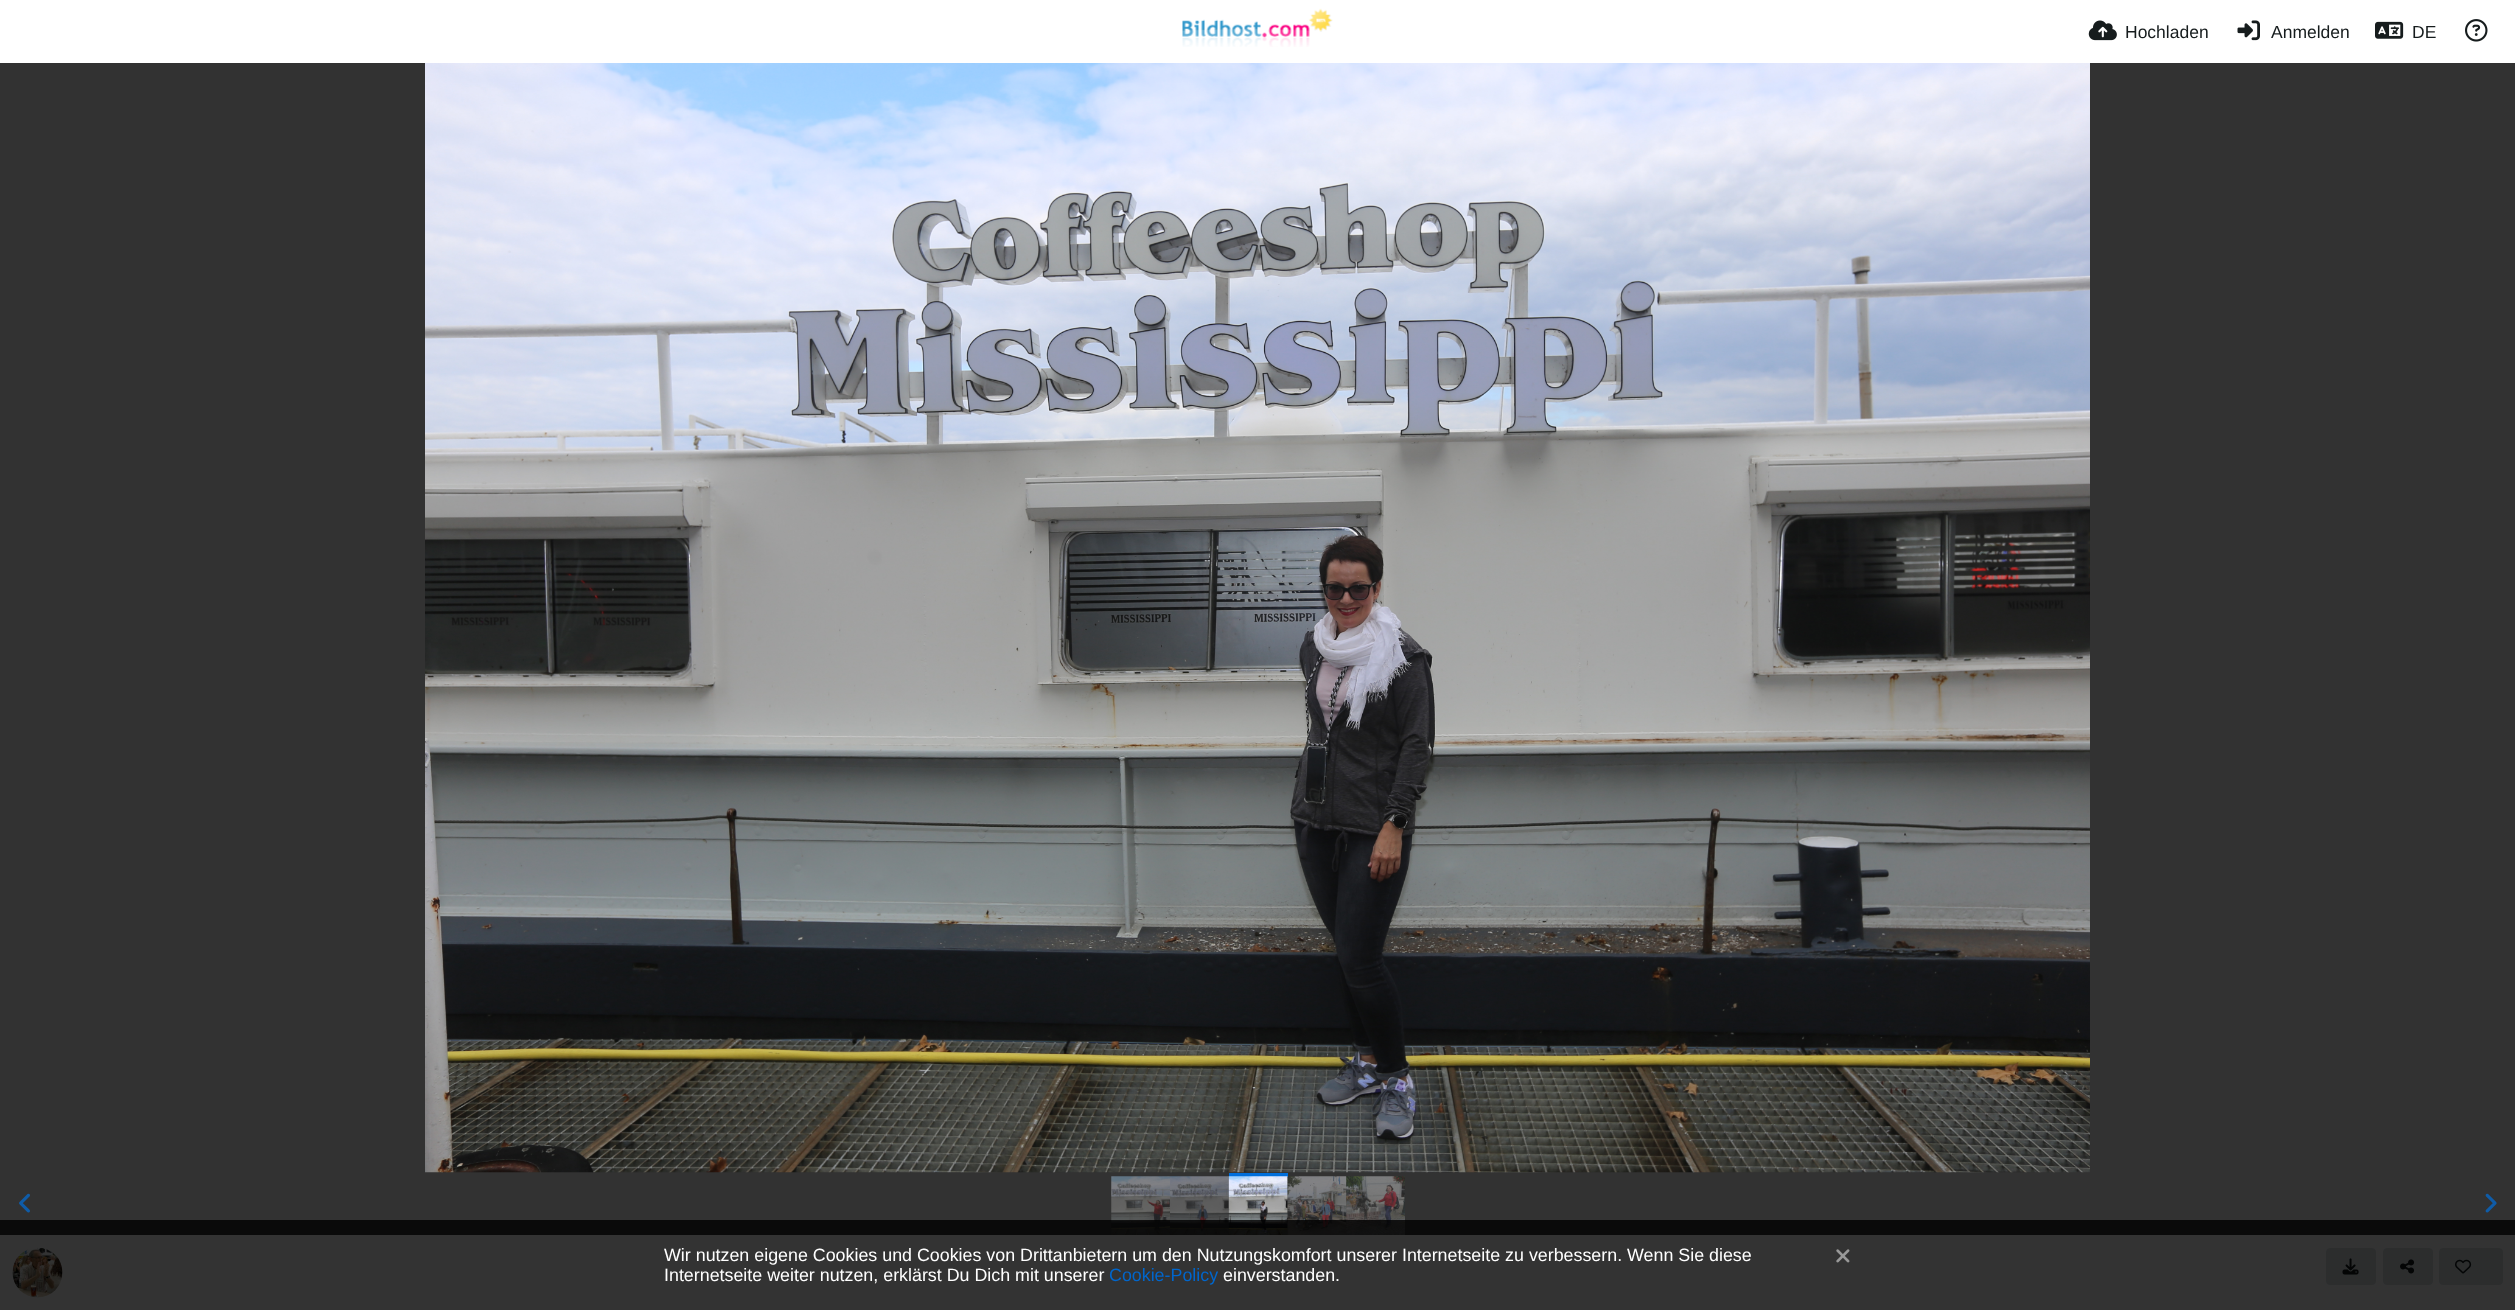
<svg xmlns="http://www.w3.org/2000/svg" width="2515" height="1310">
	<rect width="100%" height="100%" fill="#FFFFFF" />
	<image x="1182" y="8" width="151" height="39" href="assets/img1.png" />
	<image x="2088" y="20" width="29" height="21" href="assets/img2.png" />
	<text x="2125" y="38" font-family="Liberation Sans" font-size="17.5" fill="#161C1D">Hochladen</text>
	<image x="2237" y="20" width="23" height="21" href="assets/img3.png" />
	<text x="2271" y="38" font-family="Liberation Sans" font-size="17.5" fill="#161C1D">Anmelden</text>
	<image x="2375" y="21" width="29" height="18" href="assets/img4.png" />
	<text x="2412" y="38" font-family="Liberation Sans" font-size="17.5" fill="#161C1D">DE</text>
	<image x="2465" y="19" width="23" height="23" href="assets/img5.png" />
	<rect x="0" y="63" width="2515" height="1172" fill="#323232" />
	<image x="1111" y="1176" width="59" height="59" href="assets/img6.png" />
	<image x="1170" y="1176" width="59" height="59" href="assets/img7.png" />
	<rect x="1229" y="1173" width="59" height="4" fill="#006EDB" />
	<image x="1228" y="1176" width="60" height="59" href="assets/img8.png" />
	<image x="1287" y="1176" width="60" height="59" href="assets/img9.png" />
	<image x="1346" y="1176" width="59" height="59" href="assets/img10.png" />
	<image x="19" y="1193" width="11" height="20" href="assets/img11.png" />
	<image x="2485" y="1193" width="12" height="20" href="assets/img12.png" />
	<image x="425" y="63" width="1665" height="1110" href="assets/img13.png" />
	<image x="12" y="1247" width="51" height="51" href="assets/img14.png" />
	<rect x="2326.5" y="1248.5" width="49" height="36" rx="3.5" fill="#D9E1E2" stroke="#D9E1E2" />
	<image x="2342" y="1258" width="17" height="17" href="assets/img15.png" />
	<rect x="2383.5" y="1248.5" width="49" height="36" rx="3.5" fill="#D9E1E2" stroke="#D9E1E2" />
	<image x="2400" y="1259" width="15" height="15" href="assets/img16.png" />
	<rect x="2439.5" y="1248.5" width="63" height="36" rx="3.5" fill="#D9E1E2" stroke="#D9E1E2" />
	<image x="2455" y="1259" width="17" height="15" href="assets/img17.png" />
	<rect x="0" y="1220" width="2515" height="90" fill="#000000" fill-opacity="0.8" />
	<g font-family="Liberation Sans" font-size="17.85" fill="#FFFFFF">
		<text x="664" y="1261">Wir nutzen eigene Cookies und Cookies von Drittanbietern um den Nutzungskomfort unserer Internetseite zu verbessern. Wenn Sie diese</text>
		<text x="664" y="1281">Internetseite weiter nutzen, erklärst Du Dich mit unserer</text>
	</g>
	<text x="1109" y="1281" font-family="Liberation Sans" font-size="17.85" fill="#0066CC">Cookie-Policy</text>
	<text x="1223" y="1281" font-family="Liberation Sans" font-size="17.85" fill="#FFFFFF">einverstanden.</text>
	<image x="1836" y="1249" width="14" height="14" href="assets/img18.png" />
</svg>
